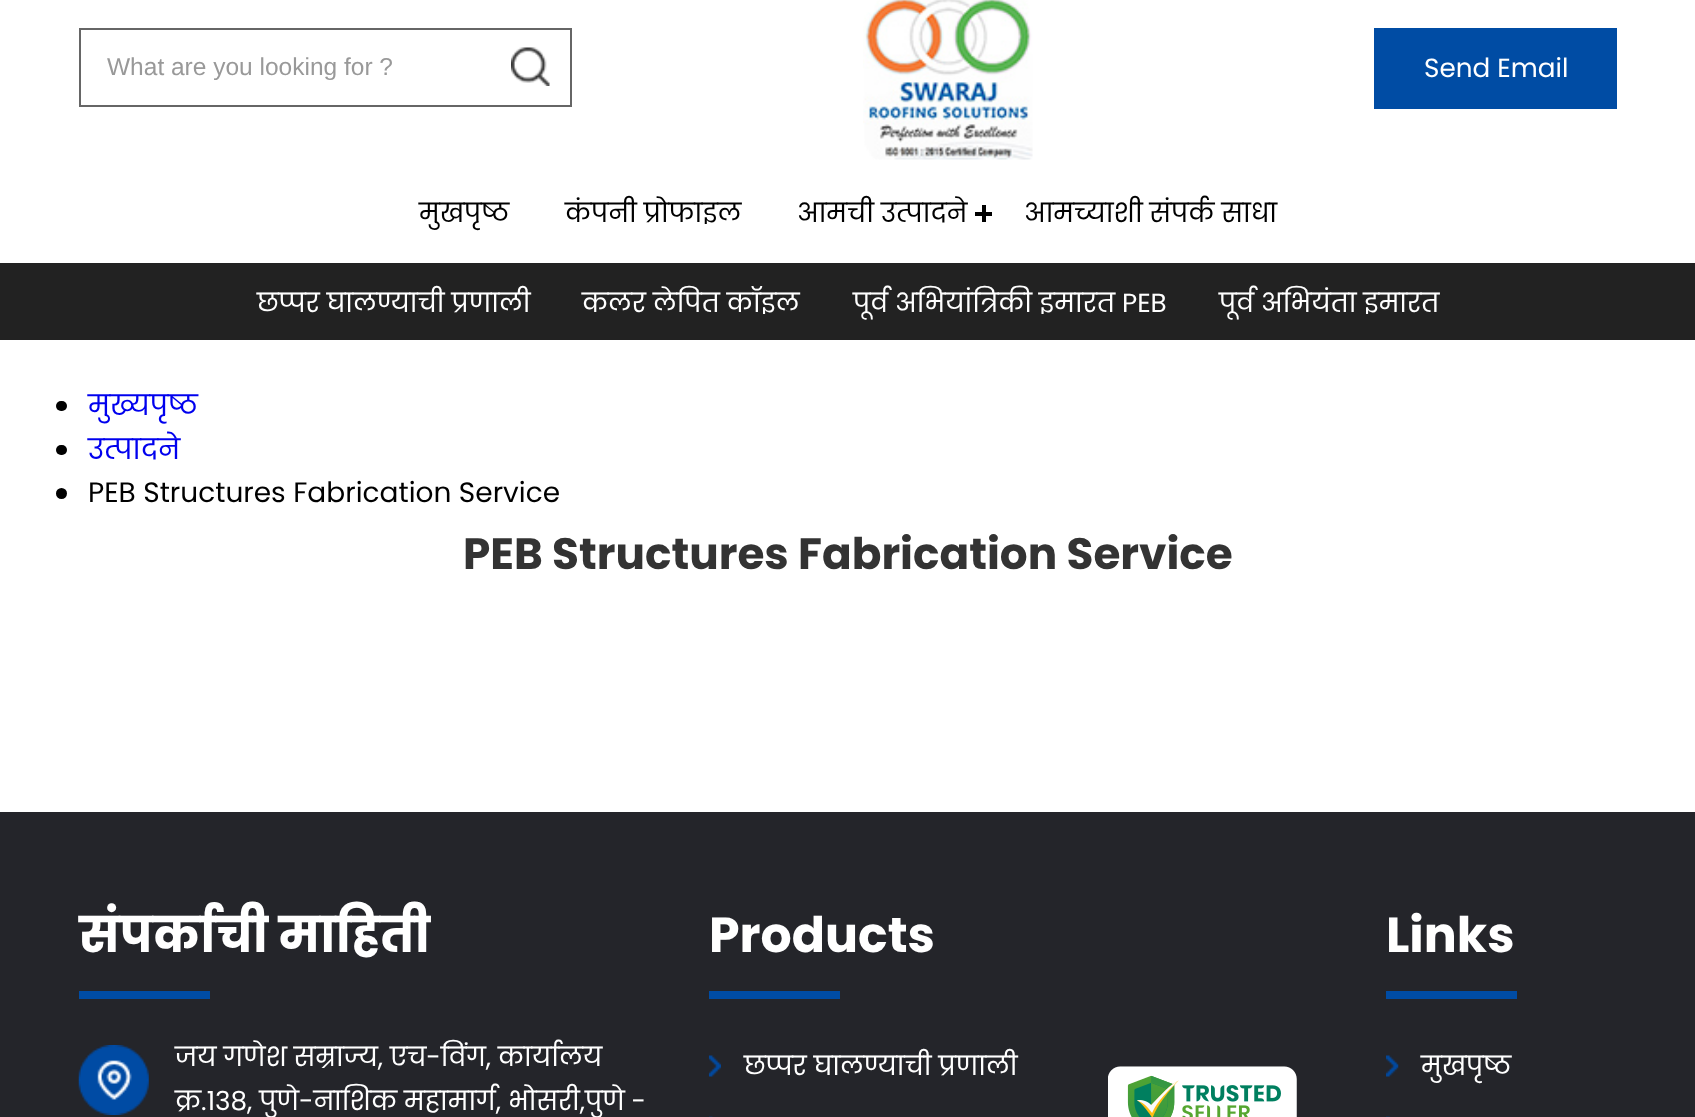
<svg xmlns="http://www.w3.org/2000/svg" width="1695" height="1117">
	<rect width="100%" height="100%" fill="#FFFFFF" />
	<rect x="80" y="29" width="491" height="77" fill="none" stroke="#666666" stroke-width="2" />
	<text x="107" y="75" font-family="Liberation Sans" font-size="24.5" fill="#999999">What are you looking for ?</text>
	<image x="511" y="47" width="39" height="39" href="assets/img1.png" />
	<image x="863" y="0" width="170" height="160" href="assets/img2.png" />
	<rect x="1374" y="28" width="243" height="81" fill="#004CA4" />
	<text x="1424" y="77" font-family="Poppins" font-size="26.25" fill="#FFFFFF">Send Email</text>
	<g font-family="Poppins" font-size="26.25" fill="#000000">
		<text x="419" y="222">मुखपृष्ठ</text>
		<text x="565" y="222">कंपनी प्रोफाइल</text>
		<text x="797" y="222">आमची उत्पादने</text>
	</g>
	<rect x="975" y="212" width="17" height="4" fill="#000000" />
	<rect x="982" y="205" width="4" height="17" fill="#000000" />
	<text x="1024" y="222" font-family="Poppins" font-size="26.25" fill="#000000">आमच्याशी संपर्क साधा</text>
	<rect x="0" y="263" width="1695" height="77" fill="#222222" />
	<g font-family="Poppins" font-size="26.25" fill="#FFFFFF">
		<text x="257" y="312">छप्पर घालण्याची प्रणाली</text>
		<text x="582" y="312">कलर लेपित कॉइल</text>
		<text x="853" y="312">पूर्व अभियांत्रिकी इमारत PEB</text>
		<text x="1219" y="312">पूर्व अभियंता इमारत</text>
	</g>
	<rect x="56" y="401" width="11" height="10" rx="5" fill="#000000" />
	<text x="88" y="415" font-family="Poppins" font-size="28" fill="#0000EE">मुख्यपृष्ठ</text>
	<rect x="56" y="445" width="11" height="10" rx="5" fill="#000000" />
	<text x="88" y="459" font-family="Poppins" font-size="28" fill="#0000EE">उत्पादने</text>
	<circle cx="61.5" cy="493.5" r="5.5" fill="#000000" />
	<text x="88" y="502" font-family="Poppins" font-size="28" fill="#000000">PEB Structures Fabrication Service</text>
	<text x="463" y="569" font-family="Poppins" font-size="43.75" font-weight="700" fill="#333333">PEB Structures Fabrication Service</text>
	<rect x="0" y="812" width="1695" height="305" fill="#24252A" />
	<text x="79" y="952" font-family="Poppins" font-size="49" font-weight="700" fill="#FFFFFF">संपर्काची माहिती</text>
	<rect x="79" y="991" width="131" height="8" fill="#004CA4" />
	<image x="78" y="1045" width="71" height="70" href="assets/img3.png" />
	<g font-family="Poppins" font-size="26.25" fill="#FFFFFF">
		<text x="175" y="1066">जय गणेश सम्राज्य, एच-विंग, कार्यालय</text>
		<text x="175" y="1110">क्र.१३८, पुणे-नाशिक महामार्ग, भोसरी,पुणे -</text>
	</g>
	<text x="709" y="952" font-family="Poppins" font-size="49" font-weight="700" fill="#FFFFFF">Products</text>
	<rect x="709" y="991" width="131" height="8" fill="#004CA4" />
	<image x="708" y="1055" width="13" height="22" href="assets/img4.png" />
	<text x="744" y="1075" font-family="Poppins" font-size="26.25" fill="#FFFFFF">छप्पर घालण्याची प्रणाली</text>
	<image x="709" y="1116" width="4" height="1" href="assets/img5.png" />
	<text x="1386" y="952" font-family="Poppins" font-size="49" font-weight="700" fill="#FFFFFF">Links</text>
	<rect x="1386" y="991" width="131" height="8" fill="#004CA4" />
	<image x="1386" y="1055" width="13" height="22" href="assets/img6.png" />
	<text x="1421" y="1075" font-family="Poppins" font-size="26.25" fill="#FFFFFF">मुखपृष्ठ</text>
	<image x="1386" y="1116" width="4" height="1" href="assets/img7.png" />
	<image x="1108" y="1066" width="189" height="51" href="assets/img8.png" />
</svg>
